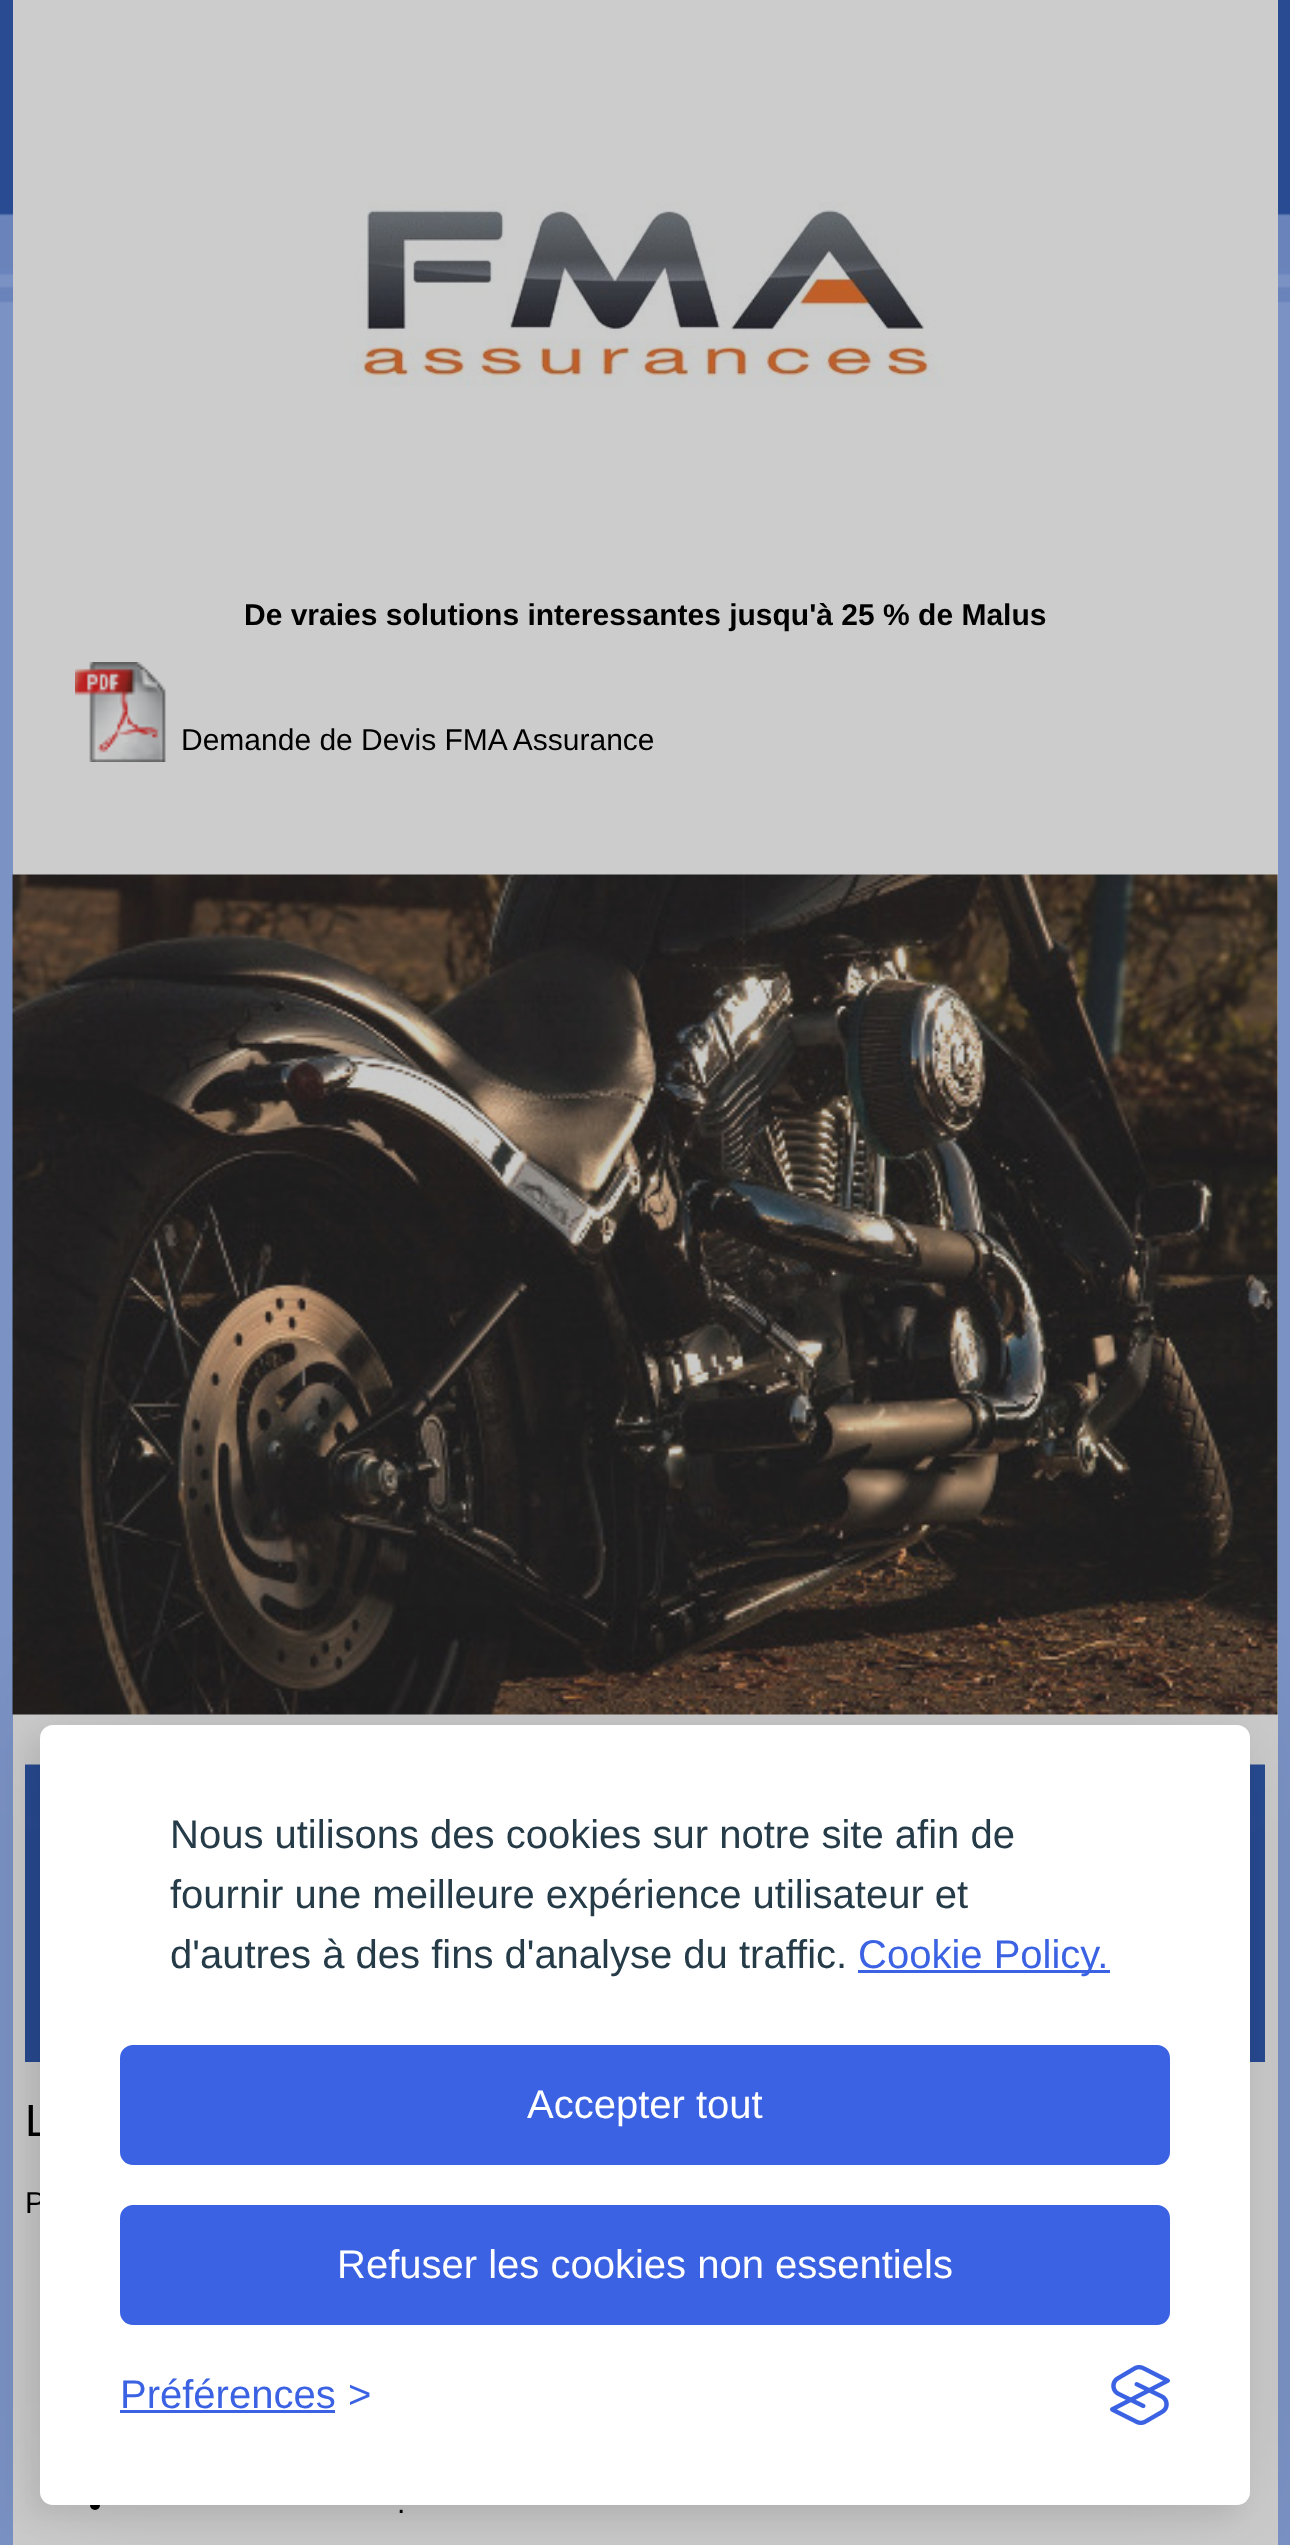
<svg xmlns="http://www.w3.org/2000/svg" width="1290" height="2545">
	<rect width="100%" height="100%" fill="#7A92C4" />
	<image x="0" y="0" width="1290" height="303" href="assets/img1.png" />
	<rect x="13" y="0" width="1265" height="2545" fill="#CCCCCC" />
	<image x="347" y="202" width="597" height="185" href="assets/img2.png" />
	<text x="244" y="625" font-family="Liberation Sans" font-size="30" font-weight="700" fill="#000000">De vraies solutions interessantes jusqu'à 25 % de Malus</text>
	<image x="75" y="662" width="91" height="100" href="assets/img3.png" />
	<text x="181" y="750" font-family="Liberation Sans" font-size="30" fill="#000000">Demande de Devis FMA Assurance</text>
	<image x="12" y="874" width="1266" height="841" href="assets/img4.png" />
	<image x="25" y="1764" width="1240" height="298" href="assets/img5.png" />
	<text x="25" y="2136" font-family="Liberation Sans" font-size="45" fill="#000000">L</text>
	<text x="25" y="2213" font-family="Liberation Sans" font-size="30" fill="#000000">P</text>
	<circle cx="95" cy="2505" r="5" fill="#000000" />
	<text x="397" y="2513" font-family="Liberation Sans" font-size="30" fill="#000000">.</text>
	<rect x="40" y="1725" width="1210" height="780" rx="13" fill="#000000" fill-opacity="0.1" filter="blur(62.5px)" />
	<rect x="28" y="1738" width="1210" height="780" rx="13" fill="#000000" fill-opacity="0.07" filter="blur(12.5px)" />
	<rect x="40" y="1725" width="1210" height="780" rx="13" fill="#FFFFFF" />
	<g font-family="Liberation Sans" font-size="40" fill="#253B48">
		<text x="170" y="1848">Nous utilisons des cookies sur notre site afin de</text>
		<text x="170" y="1908">fournir une meilleure expérience utilisateur et</text>
		<text x="170" y="1968">d'autres à des fins d'analyse du traffic.</text>
	</g>
	<rect x="858" y="1970" width="252" height="3" fill="#3B62E2" />
	<text x="858" y="1968" font-family="Liberation Sans" font-size="40" fill="#3B62E2">Cookie Policy.</text>
	<rect x="122.5" y="2047.5" width="1045" height="115" rx="10.5" fill="#3B62E2" stroke="#3B62E2" stroke-width="5" />
	<text x="527" y="2118" font-family="Liberation Sans" font-size="40" fill="#FFFFFF">Accepter tout</text>
	<rect x="122.5" y="2207.5" width="1045" height="115" rx="10.5" fill="#3B62E2" stroke="#3B62E2" stroke-width="5" />
	<text x="337" y="2278" font-family="Liberation Sans" font-size="40" fill="#FFFFFF">Refuser les cookies non essentiels</text>
	<text x="120" y="2408" font-family="Liberation Sans" font-size="40" fill="#3B62E2">Préférences</text>
	<rect x="120" y="2410" width="215" height="3" fill="#3B62E2" />
	<text x="348" y="2408" font-family="Liberation Sans" font-size="40" fill="#3B62E2">&gt;</text>
	<image x="1110" y="2365" width="60" height="60" href="assets/img6.png" />
</svg>
